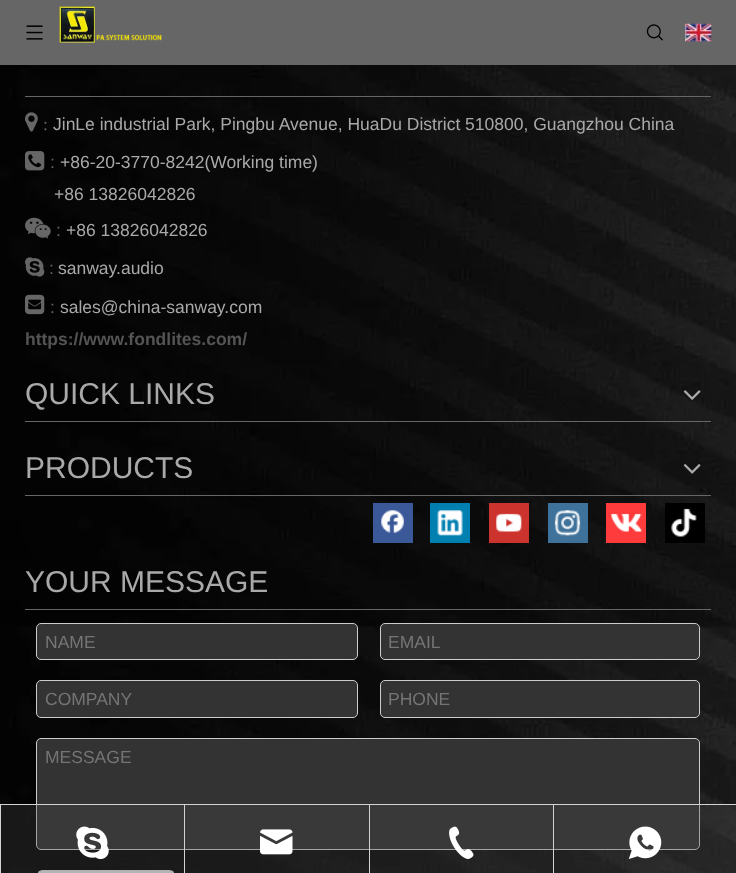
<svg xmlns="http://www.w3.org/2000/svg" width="736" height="873">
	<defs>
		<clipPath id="clip1"><rect x="38" y="870" width="136" height="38" rx="4" /></clipPath>
		<linearGradient id="g1" gradientUnits="userSpaceOnUse" x1="106" y1="871" x2="106" y2="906"><stop offset="0" stop-color="#E2E2E2" /><stop offset="1" stop-color="#F3F3F3" /></linearGradient>
	</defs>
	<rect width="100%" height="100%" fill="#FFFFFF" />
	<rect x="0" y="0" width="736" height="65" fill="#666666" />
	<image x="26" y="25" width="17" height="15" href="assets/img1.png" />
	<image x="59" y="6" width="103" height="37" href="assets/img2.png" />
	<image x="646" y="24" width="17" height="17" href="assets/img3.png" />
	<image x="685" y="23" width="27" height="19" href="assets/img4.png" />
	<image x="0" y="65" width="736" height="808" href="assets/img5.png" />
	<rect x="25" y="96" width="686" height="1" fill="#666666" />
	<image x="25" y="112" width="13" height="20" href="assets/img6.png" />
	<text x="43" y="130" font-family="Liberation Serif" font-size="17.5" fill="#666666">:</text>
	<text x="53" y="130" font-family="Liberation Sans" font-size="17.5" fill="#A9A9A9">JinLe industrial Park, Pingbu Avenue, HuaDu District 510800, Guangzhou China</text>
	<image x="25" y="151" width="20" height="20" href="assets/img7.png" />
	<text x="50" y="168" font-family="Liberation Sans" font-size="17.5" fill="#666666">:</text>
	<g font-family="Liberation Sans" font-size="17.5" fill="#A9A9A9">
		<text x="60" y="168">+86-20-3770-8242(Working time)</text>
		<text x="54" y="200">+86 13826042826</text>
	</g>
	<image x="25" y="217" width="26" height="22" href="assets/img8.png" />
	<text x="56" y="236" font-family="Liberation Sans" font-size="17.5" fill="#666666">:</text>
	<text x="66" y="236" font-family="Liberation Sans" font-size="17.5" fill="#A9A9A9">+86 13826042826</text>
	<image x="25" y="257" width="20" height="20" href="assets/img9.png" />
	<text x="49" y="274" font-family="Liberation Sans" font-size="17.5" fill="#666666">:</text>
	<text x="58" y="274" font-family="Liberation Sans" font-size="17.5" fill="#A9A9A9">sanway.audio</text>
	<image x="25" y="294" width="20" height="21" href="assets/img10.png" />
	<text x="50" y="313" font-family="Liberation Sans" font-size="17.5" fill="#666666">:</text>
	<text x="60" y="313" font-family="Liberation Sans" font-size="17.5" fill="#A9A9A9">sales@china-sanway.com</text>
	<text x="25" y="345" font-family="Liberation Sans" font-size="17.5" font-weight="700" fill="#545454">https://www.fondlites.com/</text>
	<rect x="36.5" y="738.5" width="663" height="111" rx="4.5" fill="#333333" stroke="#CCCCCC" />
	<rect x="0" y="804" width="736" height="1" fill="#D3D3D3" />
	<rect x="0" y="805" width="1" height="68" fill="#D3D3D3" />
	<g clip-path="url(#clip1)">
		<rect x="38" y="871" width="136" height="2" fill="url(#g1)" />
	</g>
	<rect x="38.5" y="870.5" width="135" height="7" rx="3.5" fill="none" stroke="#DDDDDD" />
	<rect x="1" y="805" width="183" height="68" fill="#4A4A4A" fill-opacity="0.3" />
	<image x="76" y="826" width="33" height="34" href="assets/img11.png" />
	<rect x="184" y="805" width="1" height="68" fill="#D3D3D3" />
	<rect x="185" y="805" width="184" height="68" fill="#4A4A4A" fill-opacity="0.3" />
	<image x="260" y="829" width="33" height="26" href="assets/img12.png" />
	<rect x="369" y="805" width="1" height="68" fill="#D3D3D3" />
	<rect x="370" y="805" width="183" height="68" fill="#4A4A4A" fill-opacity="0.3" />
	<image x="449" y="826" width="25" height="33" href="assets/img13.png" />
	<rect x="553" y="805" width="1" height="68" fill="#D3D3D3" />
	<rect x="554" y="805" width="182" height="68" fill="#4A4A4A" fill-opacity="0.3" />
	<image x="628" y="826" width="34" height="33" href="assets/img14.png" />
	<rect x="25" y="421" width="686" height="1" fill="#666666" />
	<text x="25" y="404" font-family="Liberation Sans" font-size="30" fill="#A9A9A9">QUICK LINKS</text>
	<image x="683" y="390" width="18" height="10" href="assets/img15.png" />
	<rect x="25" y="495" width="686" height="1" fill="#666666" />
	<text x="25" y="478" font-family="Liberation Sans" font-size="30" fill="#A9A9A9">PRODUCTS</text>
	<image x="683" y="464" width="18" height="10" href="assets/img16.png" />
	<rect x="373" y="503" width="40" height="40" fill="#3B5998" />
	<image x="381" y="510" width="23" height="23" href="assets/img17.png" />
	<rect x="430" y="503" width="40" height="40" fill="#007FB1" />
	<image x="437" y="510" width="26" height="26" href="assets/img18.png" />
	<rect x="489" y="503" width="40" height="40" fill="#CD332D" />
	<image x="496" y="513" width="26" height="19" href="assets/img19.png" />
	<rect x="548" y="503" width="40" height="40" fill="#3F729B" />
	<image x="554" y="510" width="27" height="26" href="assets/img20.png" />
	<rect x="606" y="503" width="40" height="40" fill="#FF3B3B" />
	<image x="611" y="513" width="31" height="19" href="assets/img21.png" />
	<rect x="665" y="503" width="40" height="40" fill="#000000" />
	<image x="671" y="508" width="26" height="29" href="assets/img22.png" />
	<rect x="25" y="609" width="686" height="1" fill="#666666" />
	<text x="25" y="592" font-family="Liberation Sans" font-size="30" fill="#A9A9A9">YOUR MESSAGE</text>
	<rect x="36.5" y="623.5" width="321" height="36" rx="4.5" fill="#333333" stroke="#CCCCCC" />
	<text x="45" y="648" font-family="Liberation Sans" font-size="17.5" fill="#757575">NAME</text>
	<rect x="380.5" y="623.5" width="319" height="36" rx="4.5" fill="#333333" stroke="#CCCCCC" />
	<text x="388" y="648" font-family="Liberation Sans" font-size="17.5" fill="#757575">EMAIL</text>
	<rect x="36.5" y="680.5" width="321" height="37" rx="4.5" fill="#333333" stroke="#CCCCCC" />
	<text x="45" y="705" font-family="Liberation Sans" font-size="17.5" fill="#757575">COMPANY</text>
	<rect x="380.5" y="680.5" width="319" height="37" rx="4.5" fill="#333333" stroke="#CCCCCC" />
	<g font-family="Liberation Sans" font-size="17.5" fill="#757575">
		<text x="388" y="705">PHONE</text>
		<text x="45" y="763">MESSAGE</text>
	</g>
</svg>
